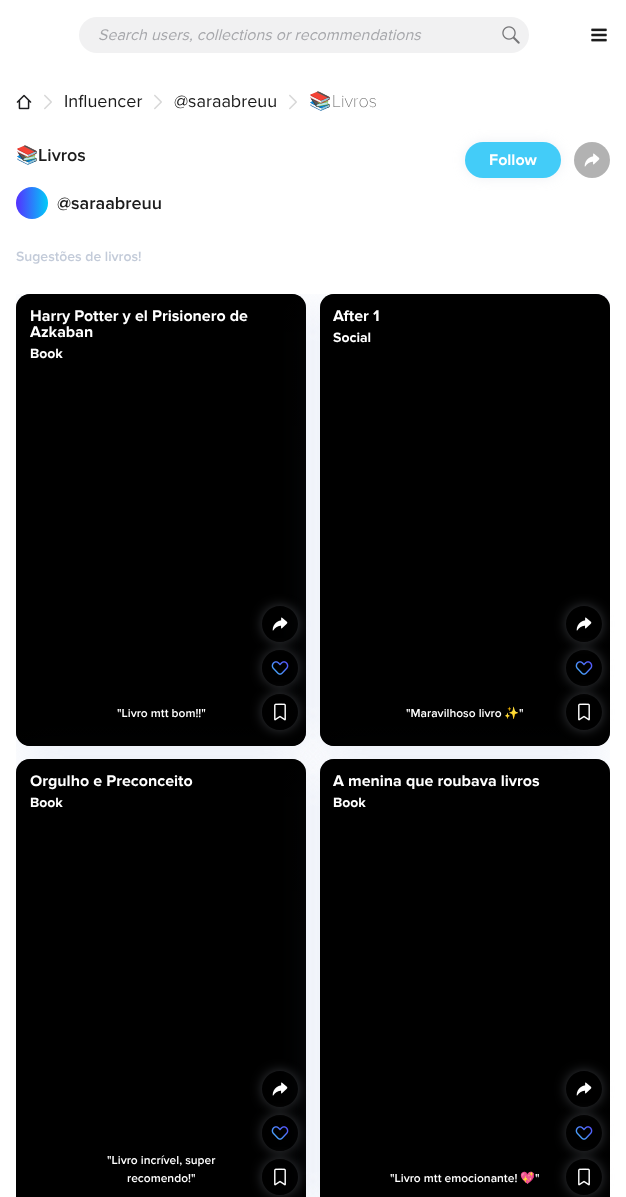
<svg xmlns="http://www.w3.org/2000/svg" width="626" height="1197">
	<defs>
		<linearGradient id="g1" gradientUnits="userSpaceOnUse" x1="48" y1="203" x2="16" y2="203"><stop offset="0" stop-color="#00CCF8" /><stop offset="1" stop-color="#5530FF" /></linearGradient>
		<clipPath id="clip1"><rect x="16" y="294" width="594" height="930" /></clipPath>
		<linearGradient id="g2" gradientUnits="userSpaceOnUse" x1="161" y1="294" x2="161" y2="520"><stop offset="0" stop-color="#000000" stop-opacity="0.6" /><stop offset="1" stop-color="#000000" stop-opacity="0" /></linearGradient>
		<clipPath id="clip2"><path d="M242 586H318V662H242ZM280 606C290 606 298 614 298 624C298 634 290 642 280 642C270 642 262 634 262 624C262 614 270 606 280 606Z" clip-rule="evenodd" /></clipPath>
		<linearGradient id="g3" gradientUnits="userSpaceOnUse" x1="161" y1="746" x2="161" y2="678"><stop offset="0" stop-color="#000000" stop-opacity="0.8" /><stop offset="1" stop-color="#000000" stop-opacity="0" /></linearGradient>
		<clipPath id="clip3"><path d="M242 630H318V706H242ZM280 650C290 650 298 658 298 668C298 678 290 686 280 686C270 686 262 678 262 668C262 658 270 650 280 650Z" clip-rule="evenodd" /></clipPath>
		<clipPath id="clip4"><path d="M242 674H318V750H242ZM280 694C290 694 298 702 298 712C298 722 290 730 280 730C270 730 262 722 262 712C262 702 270 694 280 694Z" clip-rule="evenodd" /></clipPath>
		<linearGradient id="g4" gradientUnits="userSpaceOnUse" x1="465" y1="294" x2="465" y2="520"><stop offset="0" stop-color="#000000" stop-opacity="0.6" /><stop offset="1" stop-color="#000000" stop-opacity="0" /></linearGradient>
		<clipPath id="clip5"><path d="M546 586H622V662H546ZM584 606C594 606 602 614 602 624C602 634 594 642 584 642C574 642 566 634 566 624C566 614 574 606 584 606Z" clip-rule="evenodd" /></clipPath>
		<linearGradient id="g5" gradientUnits="userSpaceOnUse" x1="465" y1="746" x2="465" y2="678"><stop offset="0" stop-color="#000000" stop-opacity="0.8" /><stop offset="1" stop-color="#000000" stop-opacity="0" /></linearGradient>
		<clipPath id="clip6"><path d="M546 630H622V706H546ZM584 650C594 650 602 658 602 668C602 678 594 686 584 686C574 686 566 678 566 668C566 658 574 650 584 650Z" clip-rule="evenodd" /></clipPath>
		<clipPath id="clip7"><path d="M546 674H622V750H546ZM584 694C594 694 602 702 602 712C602 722 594 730 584 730C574 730 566 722 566 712C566 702 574 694 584 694Z" clip-rule="evenodd" /></clipPath>
		<linearGradient id="g6" gradientUnits="userSpaceOnUse" x1="161" y1="759" x2="161" y2="985"><stop offset="0" stop-color="#000000" stop-opacity="0.6" /><stop offset="1" stop-color="#000000" stop-opacity="0" /></linearGradient>
		<clipPath id="clip8"><path d="M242 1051H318V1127H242ZM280 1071C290 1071 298 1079 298 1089C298 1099 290 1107 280 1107C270 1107 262 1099 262 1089C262 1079 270 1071 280 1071Z" clip-rule="evenodd" /></clipPath>
		<clipPath id="clip9"><path d="M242 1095H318V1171H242ZM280 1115C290 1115 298 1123 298 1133C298 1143 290 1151 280 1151C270 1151 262 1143 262 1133C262 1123 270 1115 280 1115Z" clip-rule="evenodd" /></clipPath>
		<linearGradient id="g7" gradientUnits="userSpaceOnUse" x1="161" y1="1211" x2="161" y2="1143"><stop offset="0" stop-color="#000000" stop-opacity="0.8" /><stop offset="1" stop-color="#000000" stop-opacity="0" /></linearGradient>
		<clipPath id="clip10"><path d="M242 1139H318V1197H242ZM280 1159C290 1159 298 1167 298 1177C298 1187 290 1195 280 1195C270 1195 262 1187 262 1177C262 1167 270 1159 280 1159Z" clip-rule="evenodd" /></clipPath>
		<linearGradient id="g8" gradientUnits="userSpaceOnUse" x1="465" y1="759" x2="465" y2="985"><stop offset="0" stop-color="#000000" stop-opacity="0.6" /><stop offset="1" stop-color="#000000" stop-opacity="0" /></linearGradient>
		<clipPath id="clip11"><path d="M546 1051H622V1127H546ZM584 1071C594 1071 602 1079 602 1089C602 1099 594 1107 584 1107C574 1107 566 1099 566 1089C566 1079 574 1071 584 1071Z" clip-rule="evenodd" /></clipPath>
		<clipPath id="clip12"><path d="M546 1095H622V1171H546ZM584 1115C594 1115 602 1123 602 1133C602 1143 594 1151 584 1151C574 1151 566 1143 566 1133C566 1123 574 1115 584 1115Z" clip-rule="evenodd" /></clipPath>
		<clipPath id="clip13"><path d="M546 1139H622V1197H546ZM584 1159C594 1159 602 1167 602 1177C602 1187 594 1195 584 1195C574 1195 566 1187 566 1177C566 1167 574 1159 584 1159Z" clip-rule="evenodd" /></clipPath>
	</defs>
	<rect width="100%" height="100%" fill="#FFFFFF" />
	<rect x="79" y="17" width="450" height="36" rx="18" fill="#F1F1F2" />
	<text x="98" y="40" font-family="Proxima Nova" font-size="16" font-style="italic" fill="#A6A7AB">Search users, collections or recommendations</text>
	<image x="502" y="26" width="18" height="18" href="assets/img1.png" />
	<image x="591" y="28" width="16" height="14" href="assets/img2.png" />
	<image x="16" y="94" width="16" height="16" href="assets/img3.png" />
	<image x="44" y="94" width="8" height="16" href="assets/img4.png" />
	<text x="64" y="107" font-family="Proxima Nova" font-size="18" fill="#1C1C1C">Influencer</text>
	<image x="154" y="94" width="8" height="16" href="assets/img4.png" />
	<text x="174" y="107" font-family="Proxima Nova" font-size="18" fill="#1C1C1C">@saraabreuu</text>
	<image x="289" y="94" width="8" height="16" href="assets/img4.png" />
	<text x="309" y="107" font-family="Noto Color Emoji" font-size="18" fill="#585858">📚</text>
	<text x="332" y="107" font-family="Proxima Nova" font-size="18" font-weight="100" fill="#585858">Livros</text>
	<text x="16" y="161" font-family="Noto Color Emoji" font-size="18" font-weight="700" fill="#1C1C1C">📚</text>
	<text x="38" y="161" font-family="Proxima Nova" font-size="18" font-weight="600" fill="#1C1C1C">Livros</text>
	<rect x="467" y="144" width="92" height="32" rx="16" fill="#C3CBD9" fill-opacity="0.4" filter="blur(7px)" />
	<rect x="465" y="142" width="96" height="36" rx="18" fill="#43CCF8" />
	<text x="489" y="165" font-family="Proxima Nova" font-size="16" font-weight="700" fill="#FFFFFF">Follow</text>
	<circle cx="592" cy="160" r="18" fill="#000000" fill-opacity="0.3" />
	<image x="584" y="153" width="16" height="14" href="assets/img5.png" />
	<circle cx="32" cy="203" r="16" fill="url(#g1)" />
	<text x="57" y="209" font-family="Proxima Nova" font-size="18" font-weight="600" fill="#1C1C1C">@saraabreuu</text>
	<text x="16" y="261" font-family="Proxima Nova" font-size="14" font-weight="600" fill="#C3CBD9">Sugestões de livros!</text>
	<g clip-path="url(#clip1)">
		<rect x="21" y="303" width="280" height="442" rx="9" fill="#809AD3" fill-opacity="0.2" filter="blur(20.5px)" />
	</g>
	<rect x="16" y="294" width="290" height="452" rx="14" fill="#000000" />
	<g clip-path="url(#clip1)">
		<rect x="325" y="303" width="280" height="442" rx="9" fill="#809AD3" fill-opacity="0.2" filter="blur(20.5px)" />
	</g>
	<path d="M30 294H292C299.5 294 306 300.5 306 308V520H16V308C16 300.5 22.5 294 30 294Z" fill="url(#g2)" />
	<g font-family="Proxima Nova" font-size="16" font-weight="700" fill="#FFFFFF">
		<text x="30" y="321">Harry Potter y el Prisionero de</text>
		<text x="30" y="337">Azkaban</text>
	</g>
	<text x="30" y="358" font-family="Proxima Nova" font-size="14" font-weight="700" fill="#FFFFFF">Book</text>
	<g clip-path="url(#clip2)">
		<rect x="264" y="608" width="32" height="32" rx="16" fill="#C3CBD9" fill-opacity="0.4" filter="blur(7px)" />
	</g>
	<rect x="320" y="294" width="290" height="452" rx="14" fill="#000000" />
	<g clip-path="url(#clip1)">
		<rect x="21" y="768" width="280" height="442" rx="9" fill="#809AD3" fill-opacity="0.2" filter="blur(20.5px)" />
	</g>
	<rect x="16" y="759" width="290" height="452" rx="14" fill="#000000" />
	<g clip-path="url(#clip1)">
		<rect x="325" y="768" width="280" height="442" rx="9" fill="#809AD3" fill-opacity="0.2" filter="blur(20.5px)" />
	</g>
	<path d="M16 678H306V732C306 739.5 299.5 746 292 746H30C22.5 746 16 739.5 16 732Z" fill="url(#g3)" />
	<g clip-path="url(#clip3)">
		<rect x="264" y="652" width="32" height="32" rx="16" fill="#C3CBD9" fill-opacity="0.4" filter="blur(7px)" />
	</g>
	<image x="272" y="617" width="16" height="14" href="assets/img6.png" />
	<circle cx="280" cy="668" r="18" fill="#000000" fill-opacity="0.3" />
	<g clip-path="url(#clip4)">
		<rect x="264" y="696" width="32" height="32" rx="16" fill="#C3CBD9" fill-opacity="0.4" filter="blur(7px)" />
	</g>
	<image x="271" y="661" width="18" height="14" href="assets/img7.png" />
	<circle cx="280" cy="712" r="18" fill="#000000" fill-opacity="0.3" />
	<image x="274" y="703" width="12" height="18" href="assets/img8.png" />
	<text x="117" y="717" font-family="Proxima Nova" font-size="12" font-weight="600" fill="#FFFFFF">"Livro mtt bom!!"</text>
	<path d="M334 294H596C603.5 294 610 300.5 610 308V520H320V308C320 300.5 326.5 294 334 294Z" fill="url(#g4)" />
	<text x="333" y="321" font-family="Proxima Nova" font-size="16" font-weight="700" fill="#FFFFFF">After 1</text>
	<text x="333" y="342" font-family="Proxima Nova" font-size="14" font-weight="700" fill="#FFFFFF">Social</text>
	<g clip-path="url(#clip5)">
		<rect x="568" y="608" width="32" height="32" rx="16" fill="#C3CBD9" fill-opacity="0.4" filter="blur(7px)" />
	</g>
	<path d="M320 678H610V732C610 739.5 603.5 746 596 746H334C326.5 746 320 739.5 320 732Z" fill="url(#g5)" />
	<g clip-path="url(#clip6)">
		<rect x="568" y="652" width="32" height="32" rx="16" fill="#C3CBD9" fill-opacity="0.4" filter="blur(7px)" />
	</g>
	<image x="576" y="617" width="16" height="14" href="assets/img9.png" />
	<g clip-path="url(#clip7)">
		<rect x="568" y="696" width="32" height="32" rx="16" fill="#C3CBD9" fill-opacity="0.4" filter="blur(7px)" />
	</g>
	<image x="575" y="661" width="18" height="14" href="assets/img10.png" />
	<image x="578" y="703" width="12" height="18" href="assets/img11.png" />
	<text x="406" y="717" font-family="Proxima Nova" font-size="12" font-weight="600" fill="#FFFFFF">"Maravilhoso livro</text>
	<text x="504" y="717" font-family="Noto Color Emoji" font-size="12" font-weight="700" fill="#FFFFFF">✨</text>
	<text x="519" y="717" font-family="Proxima Nova" font-size="12" font-weight="600" fill="#FFFFFF">"</text>
	<path d="M30 759H292C299.5 759 306 765.5 306 773V985H16V773C16 765.5 22.5 759 30 759Z" fill="url(#g6)" />
	<text x="30" y="786" font-family="Proxima Nova" font-size="16" font-weight="700" fill="#FFFFFF">Orgulho e Preconceito</text>
	<text x="30" y="807" font-family="Proxima Nova" font-size="14" font-weight="700" fill="#FFFFFF">Book</text>
	<g font-family="Proxima Nova" font-size="12" font-weight="600" fill="#FFFFFF">
		<text x="107" y="1164">"Livro incrível, super</text>
		<text x="127" y="1182">recomendo!"</text>
	</g>
	<g clip-path="url(#clip8)">
		<rect x="264" y="1073" width="32" height="32" rx="16" fill="#C3CBD9" fill-opacity="0.4" filter="blur(7px)" />
	</g>
	<g clip-path="url(#clip9)">
		<rect x="264" y="1117" width="32" height="32" rx="16" fill="#C3CBD9" fill-opacity="0.4" filter="blur(7px)" />
	</g>
	<image x="272" y="1082" width="16" height="14" href="assets/img6.png" />
	<circle cx="280" cy="1133" r="18" fill="#000000" fill-opacity="0.3" />
	<rect x="302" y="1175" width="4" height="22" fill="url(#g7)" />
	<g clip-path="url(#clip10)">
		<rect x="264" y="1161" width="32" height="32" rx="16" fill="#C3CBD9" fill-opacity="0.4" filter="blur(7px)" />
	</g>
	<image x="271" y="1126" width="18" height="14" href="assets/img7.png" />
	<circle cx="280" cy="1177" r="18" fill="#000000" fill-opacity="0.3" />
	<image x="274" y="1168" width="12" height="18" href="assets/img8.png" />
	<rect x="320" y="759" width="290" height="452" rx="14" fill="#000000" />
	<path d="M334 759H596C603.5 759 610 765.5 610 773V985H320V773C320 765.5 326.5 759 334 759Z" fill="url(#g8)" />
	<text x="333" y="786" font-family="Proxima Nova" font-size="16" font-weight="700" fill="#FFFFFF">A menina que roubava livros</text>
	<text x="333" y="807" font-family="Proxima Nova" font-size="14" font-weight="700" fill="#FFFFFF">Book</text>
	<text x="390" y="1182" font-family="Proxima Nova" font-size="12" font-weight="600" fill="#FFFFFF">"Livro mtt emocionante!</text>
	<text x="520" y="1182" font-family="Noto Color Emoji" font-size="12" font-weight="700" fill="#FFFFFF">💖</text>
	<text x="535" y="1182" font-family="Proxima Nova" font-size="12" font-weight="600" fill="#FFFFFF">"</text>
	<g clip-path="url(#clip11)">
		<rect x="568" y="1073" width="32" height="32" rx="16" fill="#C3CBD9" fill-opacity="0.4" filter="blur(7px)" />
	</g>
	<g clip-path="url(#clip12)">
		<rect x="568" y="1117" width="32" height="32" rx="16" fill="#C3CBD9" fill-opacity="0.4" filter="blur(7px)" />
	</g>
	<image x="576" y="1082" width="16" height="14" href="assets/img9.png" />
	<g clip-path="url(#clip13)">
		<rect x="568" y="1161" width="32" height="32" rx="16" fill="#C3CBD9" fill-opacity="0.4" filter="blur(7px)" />
	</g>
	<image x="575" y="1126" width="18" height="14" href="assets/img10.png" />
	<image x="578" y="1168" width="12" height="18" href="assets/img11.png" />
</svg>
